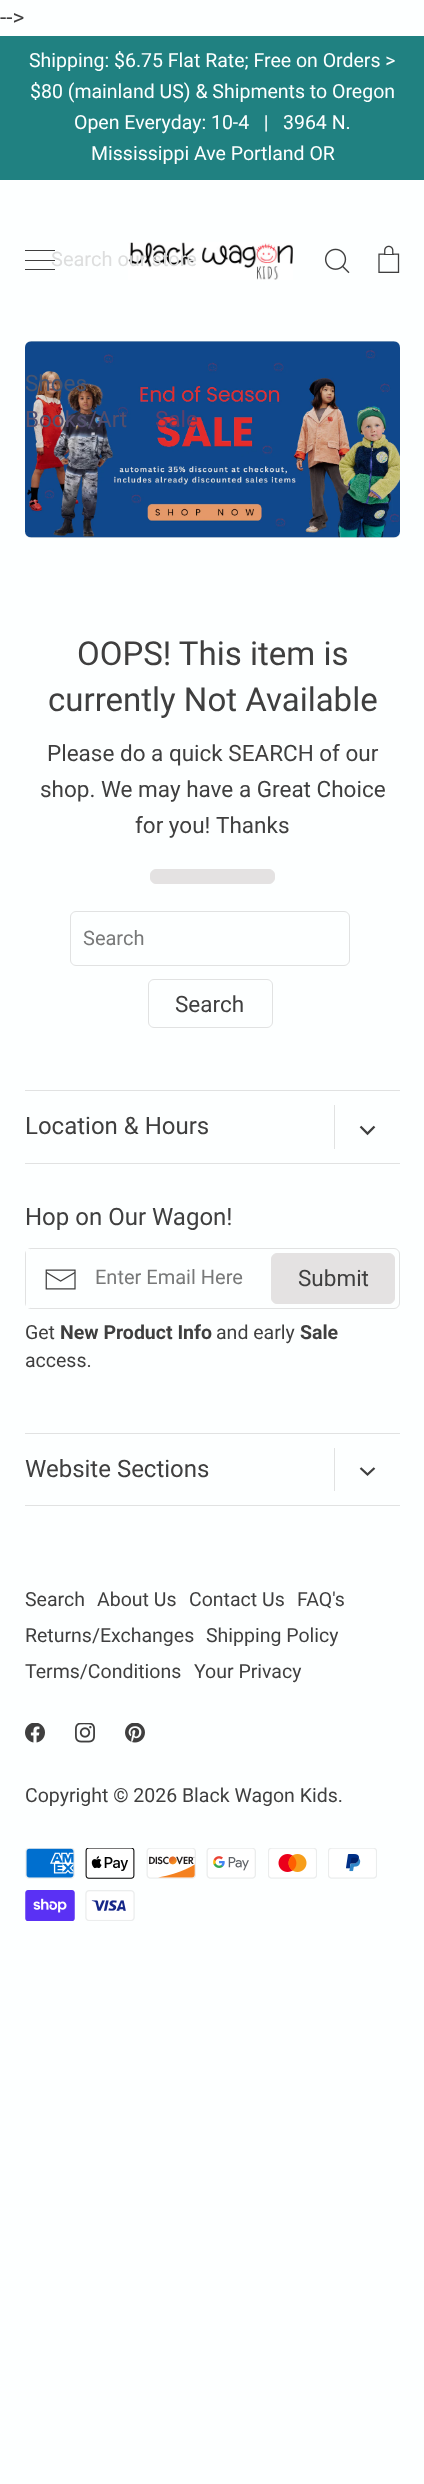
<svg xmlns="http://www.w3.org/2000/svg" width="424" height="2484">
	<rect width="100%" height="100%" fill="#FDFFFF" />
	<text x="0" y="25" font-family="Roboto" font-size="22.5" fill="#3F3F3F">--&gt;</text>
	<rect x="0" y="36" width="424" height="144" fill="#208181" />
	<g font-family="Roboto" font-size="19.5" fill="#FDFFFF">
		<text x="29" y="67">Shipping: $6.75 Flat Rate; Free on Orders &gt;</text>
		<text x="30" y="98">$80 (mainland US) &amp; Shipments to Oregon</text>
		<text x="74" y="129" xml:space="preserve">Open Everyday: 10-4   |   3964 N.</text>
		<text x="91" y="160">Mississippi Ave Portland OR</text>
	</g>
	<rect x="25" y="250" width="30" height="1" fill="#3F3F3F" />
	<rect x="25" y="260" width="30" height="1" fill="#3F3F3F" />
	<rect x="25" y="269" width="30" height="1" fill="#3F3F3F" />
	<image x="128" y="242" width="165" height="38" href="assets/img1.png" />
	<text x="51" y="266" font-family="Roboto" font-size="20" fill="#DDDEDE">Search our store</text>
	<image x="25" y="341" width="375" height="197" href="assets/img4.png" />
	<rect x="25" y="341" width="375" height="197" rx="6" fill="#000000" fill-opacity="0.1" />
	<text x="25" y="391" font-family="Roboto" font-size="22.5" fill="#455471">Shoes</text>
	<text x="25" y="427" font-family="Roboto" font-size="22.5" fill="#534E6C">Books/Art</text>
	<text x="155" y="427" font-family="Roboto" font-size="22.5" fill="#5E3F6A">Sale</text>
	<image x="324" y="248" width="26" height="26" href="assets/img2.png" />
	<image x="378" y="245" width="22" height="28" href="assets/img3.png" />
	<g font-family="Roboto" font-size="33" fill="#3F3F3F">
		<text x="77" y="665">OOPS! This item is</text>
		<text x="48" y="711">currently Not Available</text>
	</g>
	<g font-family="Roboto" font-size="22.5" fill="#3F3F3F">
		<text x="47" y="761">Please do a quick SEARCH of our</text>
		<text x="40" y="797">shop. We may have a Great Choice</text>
		<text x="135" y="833">for you!</text>
		<text x="216" y="833">Thanks</text>
	</g>
	<rect x="150.5" y="869.5" width="124" height="14" rx="5.5" fill="#E4E2E2" stroke="#E4E2E2" />
	<rect x="70.5" y="911.5" width="279" height="54" rx="5.5" fill="none" stroke="#E1E2E2" />
	<text x="83" y="945" font-family="Roboto" font-size="20" fill="#787979">Search</text>
	<rect x="148.5" y="979.5" width="124" height="48" rx="5.5" fill="none" stroke="#E1E2E2" />
	<text x="175" y="1012" font-family="Roboto" font-size="22.5" fill="#3F3F3F">Search</text>
	<rect x="25" y="1090" width="375" height="1" fill="#E1E2E2" />
	<rect x="25" y="1163" width="375" height="1" fill="#E1E2E2" />
	<text x="25" y="1134" font-family="Roboto" font-size="24" fill="#3F3F3F">Location &amp; Hours</text>
	<rect x="334" y="1105" width="1" height="44" fill="#E1E2E2" />
	<path d="M360.5 1126.5L367.5 1133.5L374.5 1126.5" fill="none" stroke="#3F3F3F" stroke-width="2.3" />
	<rect x="25" y="1433" width="375" height="1" fill="#E1E2E2" />
	<text x="25" y="1225" font-family="Roboto" font-size="24" fill="#3F3F3F">Hop on Our Wagon!</text>
	<rect x="25.5" y="1248.5" width="374" height="60" rx="5.5" fill="none" stroke="#E1E2E2" />
	<image x="45" y="1269" width="31" height="21" href="assets/img5.png" />
	<rect x="26" y="1249" width="4" height="59" fill="#FDFFFF" />
	<text x="95" y="1284" font-family="Roboto" font-size="20" fill="#787979">Enter Email Here</text>
	<rect x="271.5" y="1253.5" width="123" height="50" rx="5.5" fill="#E4E2E2" stroke="#E4E2E2" />
	<text x="298" y="1286" font-family="Roboto" font-size="22.5" fill="#3F3F3F">Submit</text>
	<text x="25" y="1339" font-family="Roboto" font-size="19.5" fill="#3F3F3F">Get</text>
	<text x="60" y="1339" font-family="Roboto" font-size="19.5" font-weight="700" fill="#3F3F3F">New Product Info</text>
	<text x="216" y="1339" font-family="Roboto" font-size="19.5" fill="#3F3F3F">and early</text>
	<text x="300" y="1339" font-family="Roboto" font-size="19.5" font-weight="700" fill="#3F3F3F">Sale</text>
	<text x="25" y="1367" font-family="Roboto" font-size="19.5" fill="#3F3F3F">access.</text>
	<rect x="25" y="1505" width="375" height="1" fill="#E1E2E2" />
	<text x="25" y="1477" font-family="Roboto" font-size="24" fill="#3F3F3F">Website Sections</text>
	<rect x="334" y="1448" width="1" height="43" fill="#E1E2E2" />
	<path d="M360.5 1468L367.5 1474.5L374.5 1468" fill="none" stroke="#3F3F3F" stroke-width="2.3" />
	<g font-family="Roboto" font-size="19.5" fill="#3F3F3F">
		<text x="25" y="1606">Search</text>
		<text x="97" y="1606">About Us</text>
		<text x="189" y="1606">Contact Us</text>
		<text x="297" y="1606">FAQ's</text>
		<text x="25" y="1642">Returns/Exchanges</text>
		<text x="206" y="1642">Shipping Policy</text>
		<text x="25" y="1678">Terms/Conditions</text>
		<text x="194" y="1678">Your Privacy</text>
	</g>
	<image x="25" y="1723" width="20" height="20" href="assets/img6.png" />
	<image x="75" y="1723" width="20" height="20" href="assets/img7.png" />
	<image x="125" y="1723" width="20" height="20" href="assets/img8.png" />
	<text x="25" y="1802" font-family="Roboto" font-size="19.5" fill="#3F3F3F">Copyright © 2026 Black Wagon Kids.</text>
	<image x="25" y="1848" width="50" height="31" href="assets/img9.png" />
	<image x="85" y="1848" width="50" height="31" href="assets/img10.png" />
	<image x="146" y="1848" width="50" height="31" href="assets/img11.png" />
	<image x="206" y="1848" width="50" height="31" href="assets/img12.png" />
	<image x="268" y="1848" width="49" height="31" href="assets/img13.png" />
	<image x="328" y="1848" width="49" height="31" href="assets/img14.png" />
	<image x="25" y="1890" width="50" height="31" href="assets/img15.png" />
	<image x="85" y="1890" width="50" height="31" href="assets/img16.png" />
</svg>
